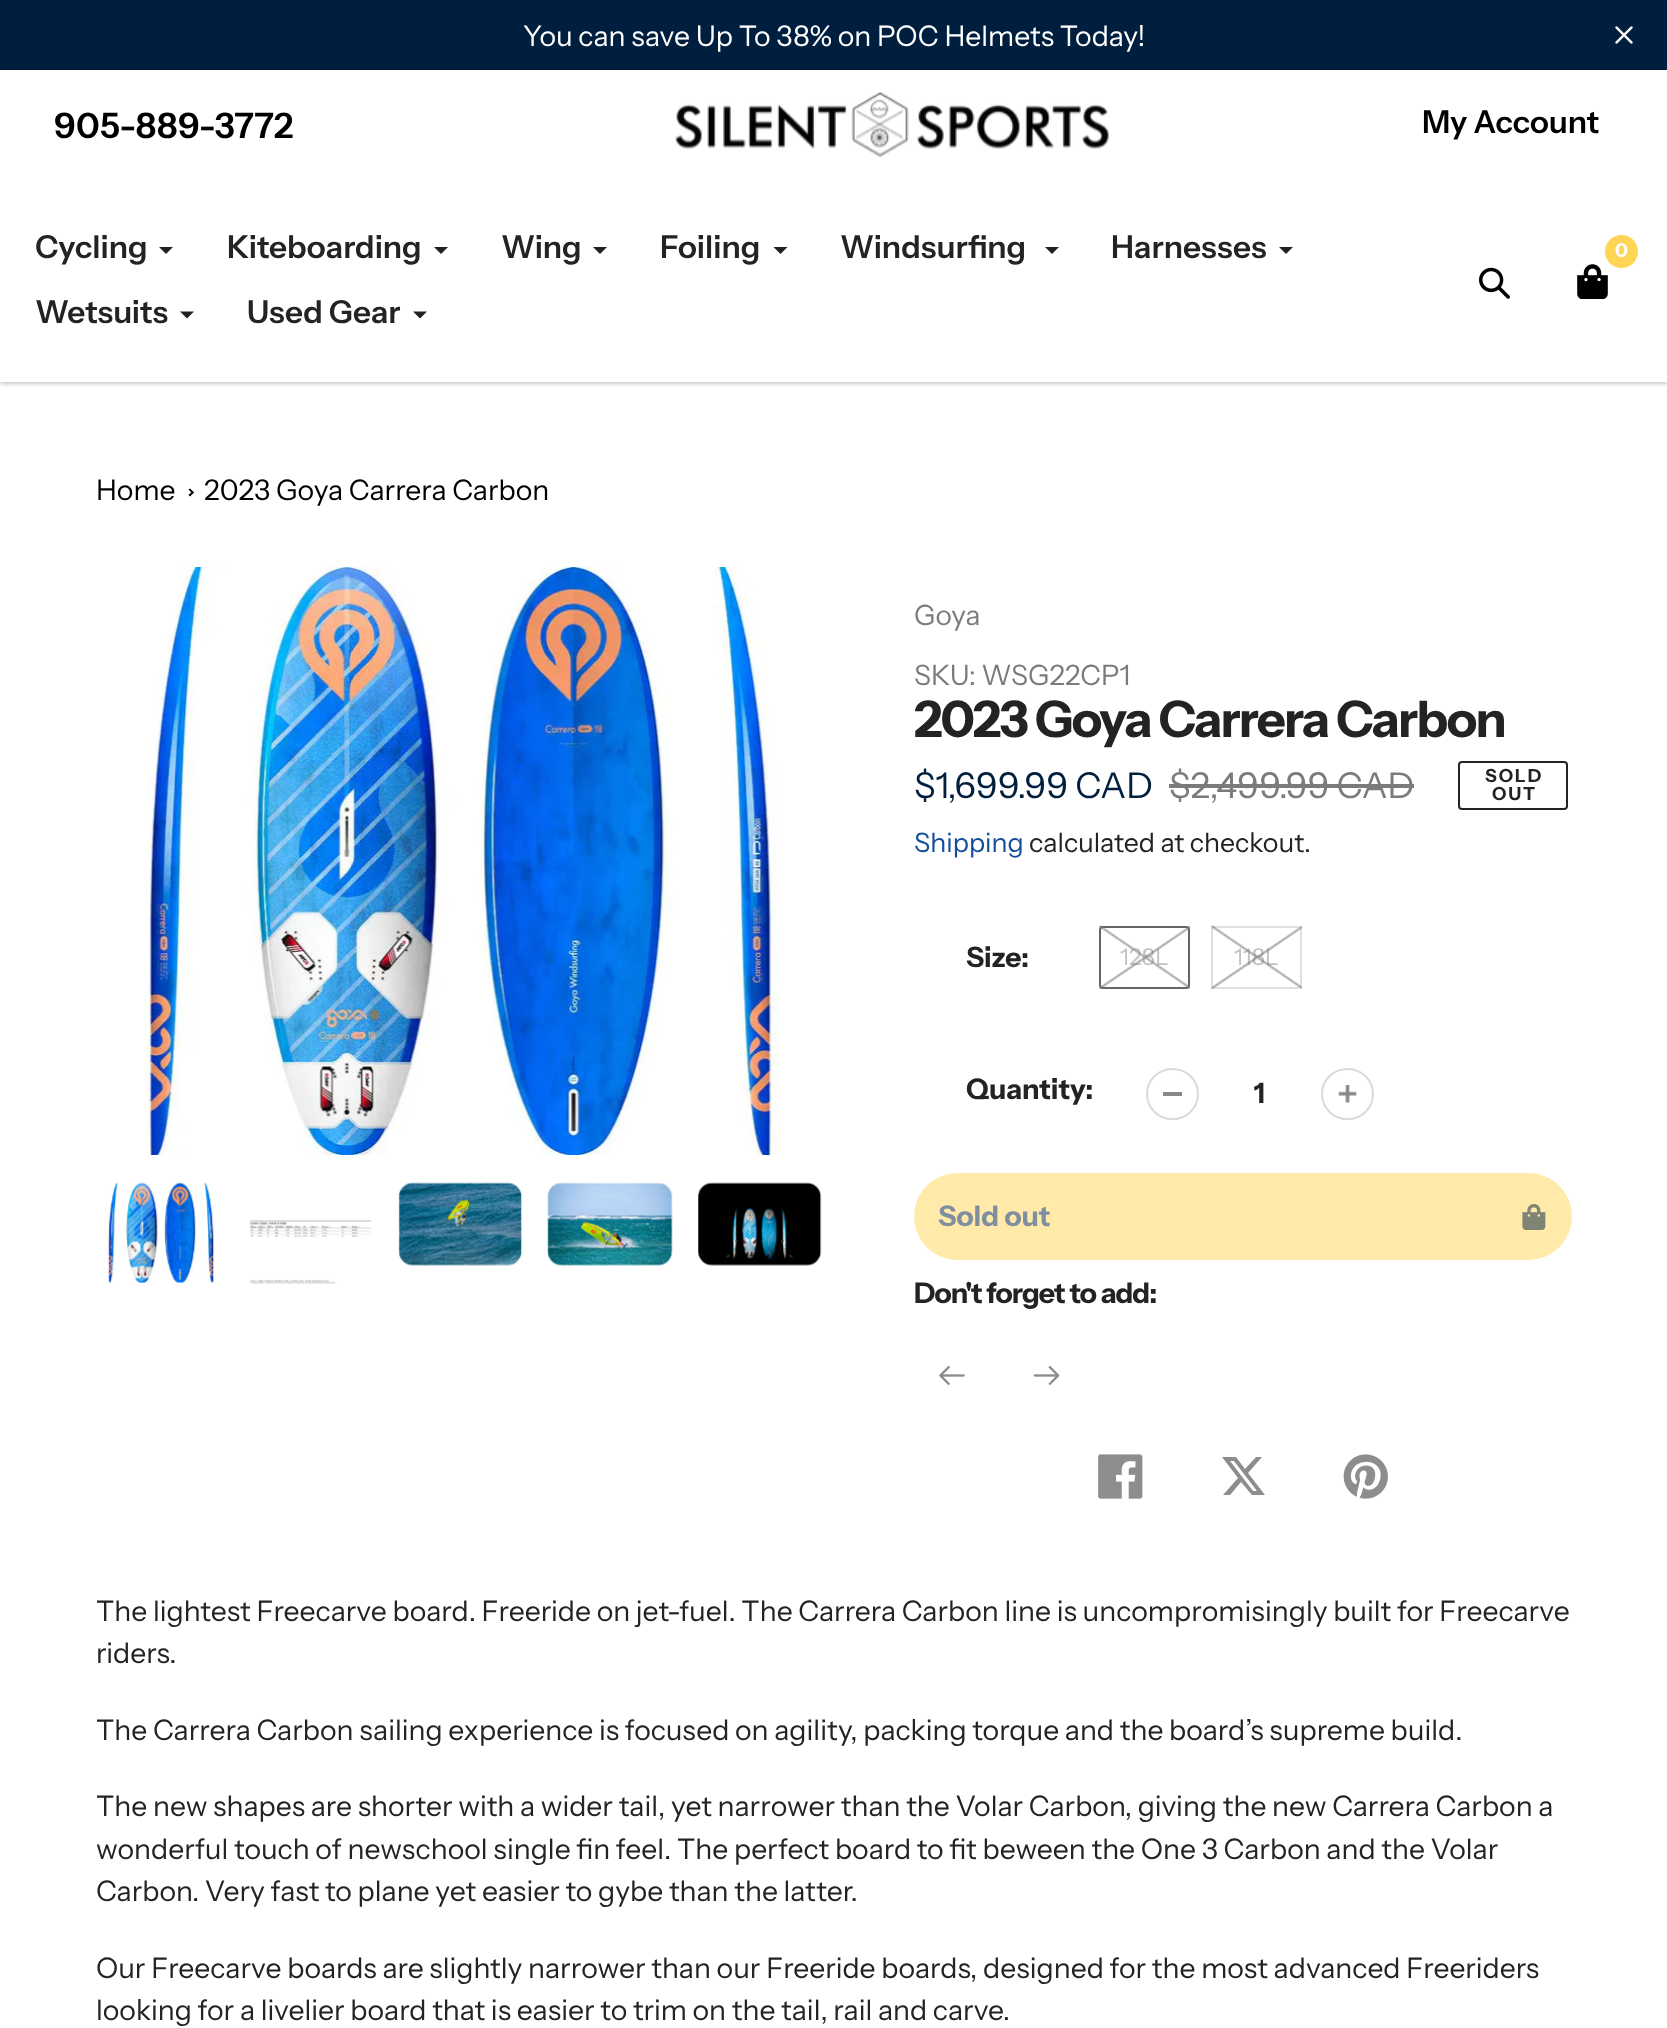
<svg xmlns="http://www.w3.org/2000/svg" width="1667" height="2028">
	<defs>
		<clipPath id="clip1"><path d="M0 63H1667V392H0ZM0 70H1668V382H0Z" clip-rule="evenodd" /></clipPath>
	</defs>
	<rect width="100%" height="100%" fill="#FFFFFF" />
	<rect x="0" y="0" width="1667" height="70" fill="#001F3E" />
	<text x="523" y="46" font-family="Instrument Sans" font-size="28.35" fill="#FFFFFF">You can save Up To 38% on POC Helmets Today!</text>
	<image x="1615" y="26" width="18" height="18" href="assets/img1.png" />
	<g clip-path="url(#clip1)">
		<rect x="0" y="72" width="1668" height="311" fill="#000000" fill-opacity="0.3" filter="blur(2.5px)" />
	</g>
	<text x="54" y="138" font-family="Instrument Sans" font-size="35" font-weight="600" fill="#000000">905-889-3772</text>
	<image x="675" y="92" width="434" height="66" href="assets/img2.png" />
	<text x="1422" y="133" font-family="Instrument Sans" font-size="31.5" font-weight="600" fill="#000000">My Account</text>
	<text x="35" y="258" font-family="Instrument Sans" font-size="31.5" font-weight="600" fill="#232323">Cycling</text>
	<path d="M173 247L166 254L159 247" fill="#212121" />
	<text x="227" y="258" font-family="Instrument Sans" font-size="31.5" font-weight="600" fill="#232323">Kiteboarding</text>
	<path d="M448 247L441 254L434 247" fill="#212121" />
	<text x="501" y="258" font-family="Instrument Sans" font-size="31.5" font-weight="600" fill="#232323">Wing</text>
	<path d="M607 247L600 254L593 247" fill="#212121" />
	<text x="660" y="258" font-family="Instrument Sans" font-size="31.5" font-weight="600" fill="#232323">Foiling</text>
	<path d="M787.5 247L780.5 254L773.5 247" fill="#212121" />
	<text x="840" y="258" font-family="Instrument Sans" font-size="31.5" font-weight="600" fill="#232323">Windsurfing</text>
	<path d="M1059 247L1052 254L1045 247" fill="#212121" />
	<text x="1111" y="258" font-family="Instrument Sans" font-size="31.5" font-weight="600" fill="#232323">Harnesses</text>
	<path d="M1293 247L1286 254L1279 247" fill="#212121" />
	<text x="35" y="323" font-family="Instrument Sans" font-size="31.5" font-weight="600" fill="#232323">Wetsuits</text>
	<path d="M194 311.5L187 318.5L180 311.5" fill="#212121" />
	<text x="247" y="323" font-family="Instrument Sans" font-size="31.5" font-weight="600" fill="#232323">Used Gear</text>
	<path d="M427 311.5L420 318.5L413 311.5" fill="#212121" />
	<image x="1577" y="264" width="31" height="35" href="assets/img3.png" />
	<circle cx="1621.5" cy="251.5" r="16.5" fill="#FFD555" />
	<text x="1615" y="257" font-family="Instrument Sans" font-size="19" font-weight="700" fill="#FFFFFF">0</text>
	<image x="1479" y="267" width="31" height="32" href="assets/img4.png" />
	<text x="96" y="500" font-family="Instrument Sans" font-size="28.35" fill="#000000">Home</text>
	<path d="M190 488.5L194 492.5L192.5 493.5L188.5 489.5Z" fill="#000000" />
	<path d="M192.5 491L194 492.5L190 496.5L188.5 495Z" fill="#000000" />
	<text x="204" y="500" font-family="Instrument Sans" font-size="28.35" fill="#000000">2023 Goya Carrera Carbon</text>
	<image x="144" y="567" width="637" height="588" href="assets/img5.png" />
	<image x="108" y="1182" width="107" height="102" href="assets/img6.png" />
	<image x="250" y="1220" width="122" height="64" href="assets/img7.png" />
	<image x="398" y="1182" width="124" height="84" href="assets/img8.png" />
	<image x="547" y="1182" width="126" height="84" href="assets/img9.png" />
	<image x="698" y="1182" width="124" height="84" href="assets/img10.png" />
	<g font-family="Instrument Sans" font-size="28" fill="#7B7B7B">
		<text x="914" y="625">Goya</text>
		<text x="914" y="685">SKU: WSG22CP1</text>
	</g>
	<text x="914" y="737" font-family="Instrument Sans" font-size="50.4" font-weight="700" letter-spacing="-1.75" fill="#232323">2023 Goya Carrera Carbon</text>
	<text x="914" y="798" font-family="Instrument Sans" font-size="35.5" fill="#001F3E">$1,699.99 CAD</text>
	<text x="1169" y="798" font-family="Instrument Sans" font-size="35.5" fill="#7B7B7B">$2,499.99 CAD</text>
	<rect x="1169" y="784" width="245" height="4" fill="#7B7B7B" />
	<rect x="1459" y="762" width="108" height="47" rx="3" fill="none" stroke="#232323" stroke-width="2" />
	<g font-family="Instrument Sans" font-size="18" font-weight="700" letter-spacing="2" fill="#232323">
		<text x="1485" y="782">SOLD</text>
		<text x="1492" y="800">OUT</text>
	</g>
	<text x="914" y="852" font-family="Instrument Sans" font-size="26.75" fill="#124E9A">Shipping</text>
	<text x="1029" y="852" font-family="Instrument Sans" font-size="26.75" fill="#232323">calculated at checkout.</text>
	<text x="966" y="967" font-family="Instrument Sans" font-size="28" font-weight="700" fill="#232323">Size:</text>
	<rect x="1100" y="927" width="89" height="61" rx="3" fill="none" stroke="#666666" stroke-width="2" />
	<text x="1120" y="965" font-family="Instrument Sans" font-size="23" fill="#C2C2C2">128L</text>
	<image x="1099" y="925" width="91" height="64" href="assets/img11.png" />
	<rect x="1212" y="927" width="89" height="61" rx="3" fill="none" stroke="#E0E0E0" stroke-width="2" />
	<text x="1234" y="965" font-family="Instrument Sans" font-size="23" fill="#C2C2C2">118L</text>
	<image x="1211" y="925" width="91" height="64" href="assets/img12.png" />
	<text x="966" y="1099" font-family="Instrument Sans" font-size="28.35" font-weight="700" fill="#232323">Quantity:</text>
	<rect x="1163" y="1092" width="19" height="4" fill="#898989" />
	<rect x="1147" y="1069" width="51" height="50" rx="25" fill="none" stroke="#D7DBDB" stroke-width="2" />
	<text x="1254" y="1103" font-family="Instrument Sans" font-size="28" font-weight="700" fill="#232323">1</text>
	<image x="1338" y="1085" width="19" height="18" href="assets/img13.png" />
	<rect x="1322" y="1069" width="51" height="50" rx="25" fill="none" stroke="#D7DBDB" stroke-width="2" />
	<rect x="914" y="1173" width="658" height="87" rx="43.5" fill="#FFEAAA" />
	<text x="938" y="1226" font-family="Instrument Sans" font-size="28.35" font-weight="700" fill="#808F9F">Sold out</text>
	<image x="1522" y="1204" width="24" height="26" href="assets/img14.png" />
	<text x="914" y="1303" font-family="Instrument Sans" font-size="28.35" font-weight="700" letter-spacing="-0.9" fill="#232323">Don't forget to add:</text>
	<image x="939" y="1365" width="26" height="21" href="assets/img15.png" />
	<image x="1033" y="1365" width="27" height="21" href="assets/img16.png" />
	<image x="1098" y="1454" width="45" height="45" href="assets/img17.png" />
	<path d="M1256 1457H1262L1248 1473L1265 1495H1252L1241 1482L1230 1495H1223L1238 1478L1222 1457H1236L1245 1469ZM1253 1491H1257L1234 1461H1230Z" fill="#8D8D8D" />
	<image x="1343" y="1454" width="45" height="45" href="assets/img18.png" />
	<g font-family="Instrument Sans" font-size="28.35" fill="#232323">
		<text x="96" y="1621">The lightest Freecarve board. Freeride on jet-fuel. The Carrera Carbon line is uncompromisingly built for Freecarve</text>
		<text x="96" y="1663">riders.</text>
		<text x="96" y="1740">The Carrera Carbon sailing experience is focused on agility, packing torque and the board’s supreme build.</text>
		<text x="96" y="1816">The new shapes are shorter with a wider tail, yet narrower than the Volar Carbon, giving the new Carrera Carbon a</text>
		<text x="96" y="1859">wonderful touch of newschool single fin feel. The perfect board to fit beween the One 3 Carbon and the Volar</text>
		<text x="96" y="1901">Carbon. Very fast to plane yet easier to gybe than the latter.</text>
		<text x="96" y="1978">Our Freecarve boards are slightly narrower than our Freeride boards, designed for the most advanced Freeriders</text>
		<text x="96" y="2020">looking for a livelier board that is easier to trim on the tail, rail and carve.</text>
	</g>
</svg>
